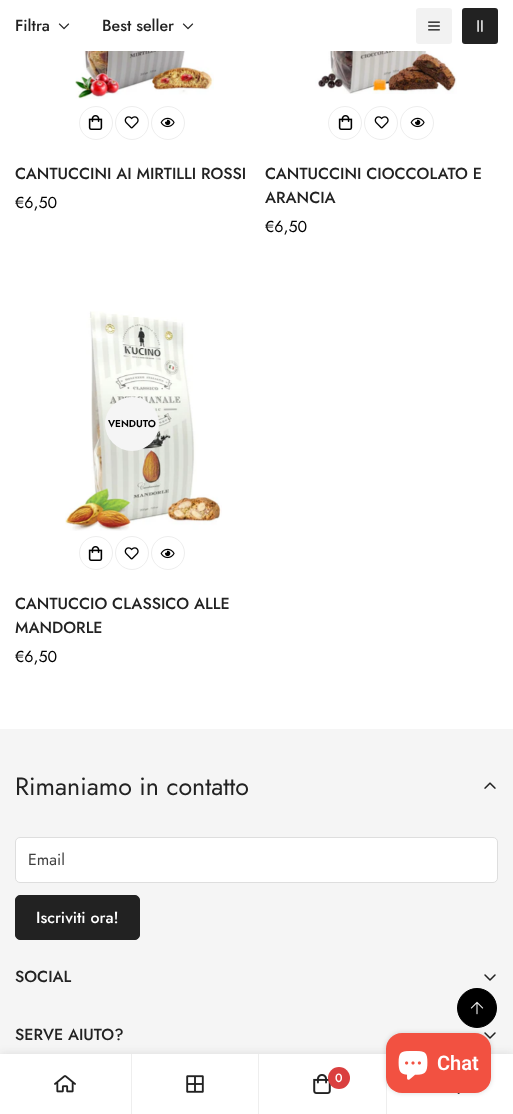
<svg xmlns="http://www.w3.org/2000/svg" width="513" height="1114">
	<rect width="100%" height="100%" fill="#FFFFFF" />
	<text x="15" y="31" font-family="Jost" font-size="16" font-weight="500" fill="#222222">Filtra</text>
	<image x="58" y="23" width="12" height="7" href="assets/img1.png" />
	<text x="102" y="31" font-family="Jost" font-size="16" font-weight="500" fill="#222222">Best seller</text>
	<image x="182" y="23" width="12" height="7" href="assets/img1.png" />
	<rect x="416" y="8" width="36" height="36" rx="3" fill="#F2F2F2" />
	<image x="428" y="21" width="12" height="10" href="assets/img2.png" />
	<rect x="462" y="8" width="36" height="36" rx="3" fill="#222222" />
	<image x="477" y="20" width="6" height="12" href="assets/img3.png" />
	<image x="75" y="51" width="139" height="48" href="assets/img4.png" />
	<circle cx="96" cy="123" r="16.5" fill="none" stroke="#EEEEEE" />
	<image x="88" y="115" width="15" height="15" href="assets/img5.png" />
	<circle cx="132" cy="123" r="16.5" fill="none" stroke="#EEEEEE" />
	<image x="124" y="116" width="15" height="13" href="assets/img6.png" />
	<circle cx="168" cy="123" r="16.5" fill="none" stroke="#EEEEEE" />
	<image x="160" y="117" width="15" height="11" href="assets/img7.png" />
	<text x="15" y="179" font-family="Jost" font-size="16" font-weight="500" fill="#222222">CANTUCCINI AI MIRTILLI ROSSI</text>
	<text x="15" y="208" font-family="Jost" font-size="16" fill="#000000">€6,50</text>
	<image x="315" y="51" width="142" height="43" href="assets/img8.png" />
	<circle cx="345" cy="123" r="16.5" fill="none" stroke="#EEEEEE" />
	<image x="338" y="115" width="15" height="15" href="assets/img5.png" />
	<circle cx="381" cy="123" r="16.5" fill="none" stroke="#EEEEEE" />
	<image x="374" y="116" width="15" height="13" href="assets/img6.png" />
	<circle cx="417" cy="123" r="16.5" fill="none" stroke="#EEEEEE" />
	<image x="410" y="117" width="15" height="11" href="assets/img7.png" />
	<g font-family="Jost" font-size="16" font-weight="500" fill="#222222">
		<text x="265" y="179">CANTUCCINI CIOCCOLATO E</text>
		<text x="265" y="203">ARANCIA</text>
	</g>
	<text x="265" y="232" font-family="Jost" font-size="16" fill="#000000">€6,50</text>
	<image x="65" y="311" width="157" height="220" href="assets/img9.png" />
	<circle cx="132" cy="424" r="27" fill="#F5F5F5" />
	<text x="108" y="427" font-family="Jost" font-size="10" font-weight="600" fill="#000000">VENDUTO</text>
	<circle cx="96" cy="553" r="16.5" fill="none" stroke="#EEEEEE" />
	<image x="88" y="546" width="15" height="15" href="assets/img5.png" />
	<circle cx="132" cy="553" r="16.5" fill="none" stroke="#EEEEEE" />
	<image x="124" y="547" width="15" height="13" href="assets/img6.png" />
	<circle cx="168" cy="553" r="16.5" fill="none" stroke="#EEEEEE" />
	<image x="160" y="548" width="15" height="11" href="assets/img7.png" />
	<g font-family="Jost" font-size="16" font-weight="500" fill="#222222">
		<text x="15" y="609">CANTUCCIO CLASSICO ALLE</text>
		<text x="15" y="633">MANDORLE</text>
	</g>
	<text x="15" y="662" font-family="Jost" font-size="16" fill="#000000">€6,50</text>
	<rect x="0" y="729" width="513" height="325" fill="#F5F5F5" />
	<text x="15" y="795" font-family="Jost" font-size="25" fill="#222222">Rimaniamo in contatto</text>
	<image x="484" y="782" width="12" height="7" href="assets/img10.png" />
	<rect x="15.5" y="837.5" width="482" height="45" rx="4.5" fill="#FFFFFF" stroke="#DEDEDE" />
	<text x="28" y="865" font-family="Jost" font-size="16" fill="#404040">Email</text>
	<rect x="15.5" y="895.5" width="124" height="44" rx="4.5" fill="#222222" stroke="#222222" />
	<text x="36" y="923" font-family="Jost" font-size="16" font-weight="500" fill="#FFFFFF">Iscriviti ora!</text>
	<text x="15" y="982" font-family="Jost" font-size="16" font-weight="500" fill="#222222">SOCIAL</text>
	<image x="484" y="974" width="12" height="7" href="assets/img11.png" />
	<text x="15" y="1040" font-family="Jost" font-size="16" font-weight="500" fill="#222222">SERVE AIUTO?</text>
	<image x="484" y="1032" width="12" height="7" href="assets/img11.png" />
	<circle cx="477" cy="1008" r="19.5" fill="#000000" stroke="#000000" />
	<image x="470" y="1001" width="14" height="14" href="assets/img12.png" />
	<rect x="0" y="1054" width="513" height="60" fill="#222222" fill-opacity="0.12" filter="blur(5px)" />
	<rect x="0" y="1054" width="513" height="60" fill="#FFFFFF" />
	<rect x="386" y="1077" width="1" height="37" fill="#EEEEEE" />
	<image x="457" y="1093" width="3" height="1" href="assets/img17.png" />
	<rect x="386" y="1033" width="105" height="60" rx="16" fill="#000000" fill-opacity="0.15" filter="blur(2.5px)" />
	<rect x="386" y="1033" width="105" height="60" rx="16" fill="#F25141" />
	<image x="398" y="1051" width="30" height="29" href="assets/img13.png" />
	<text x="437" y="1070" font-family="Roboto" font-size="20" font-weight="600" fill="#FFFFFF">Chat</text>
	<rect x="131" y="1054" width="1" height="60" fill="#EEEEEE" />
	<image x="54" y="1075" width="22" height="18" href="assets/img14.png" />
	<rect x="258" y="1054" width="1" height="60" fill="#EEEEEE" />
	<image x="186" y="1075" width="18" height="18" href="assets/img15.png" />
	<image x="313" y="1074" width="18" height="20" href="assets/img16.png" />
	<circle cx="339" cy="1078" r="11" fill="#DA3F3F" />
	<text x="335" y="1082" font-family="Jost" font-size="12" font-weight="500" fill="#FFFFFF">0</text>
</svg>
